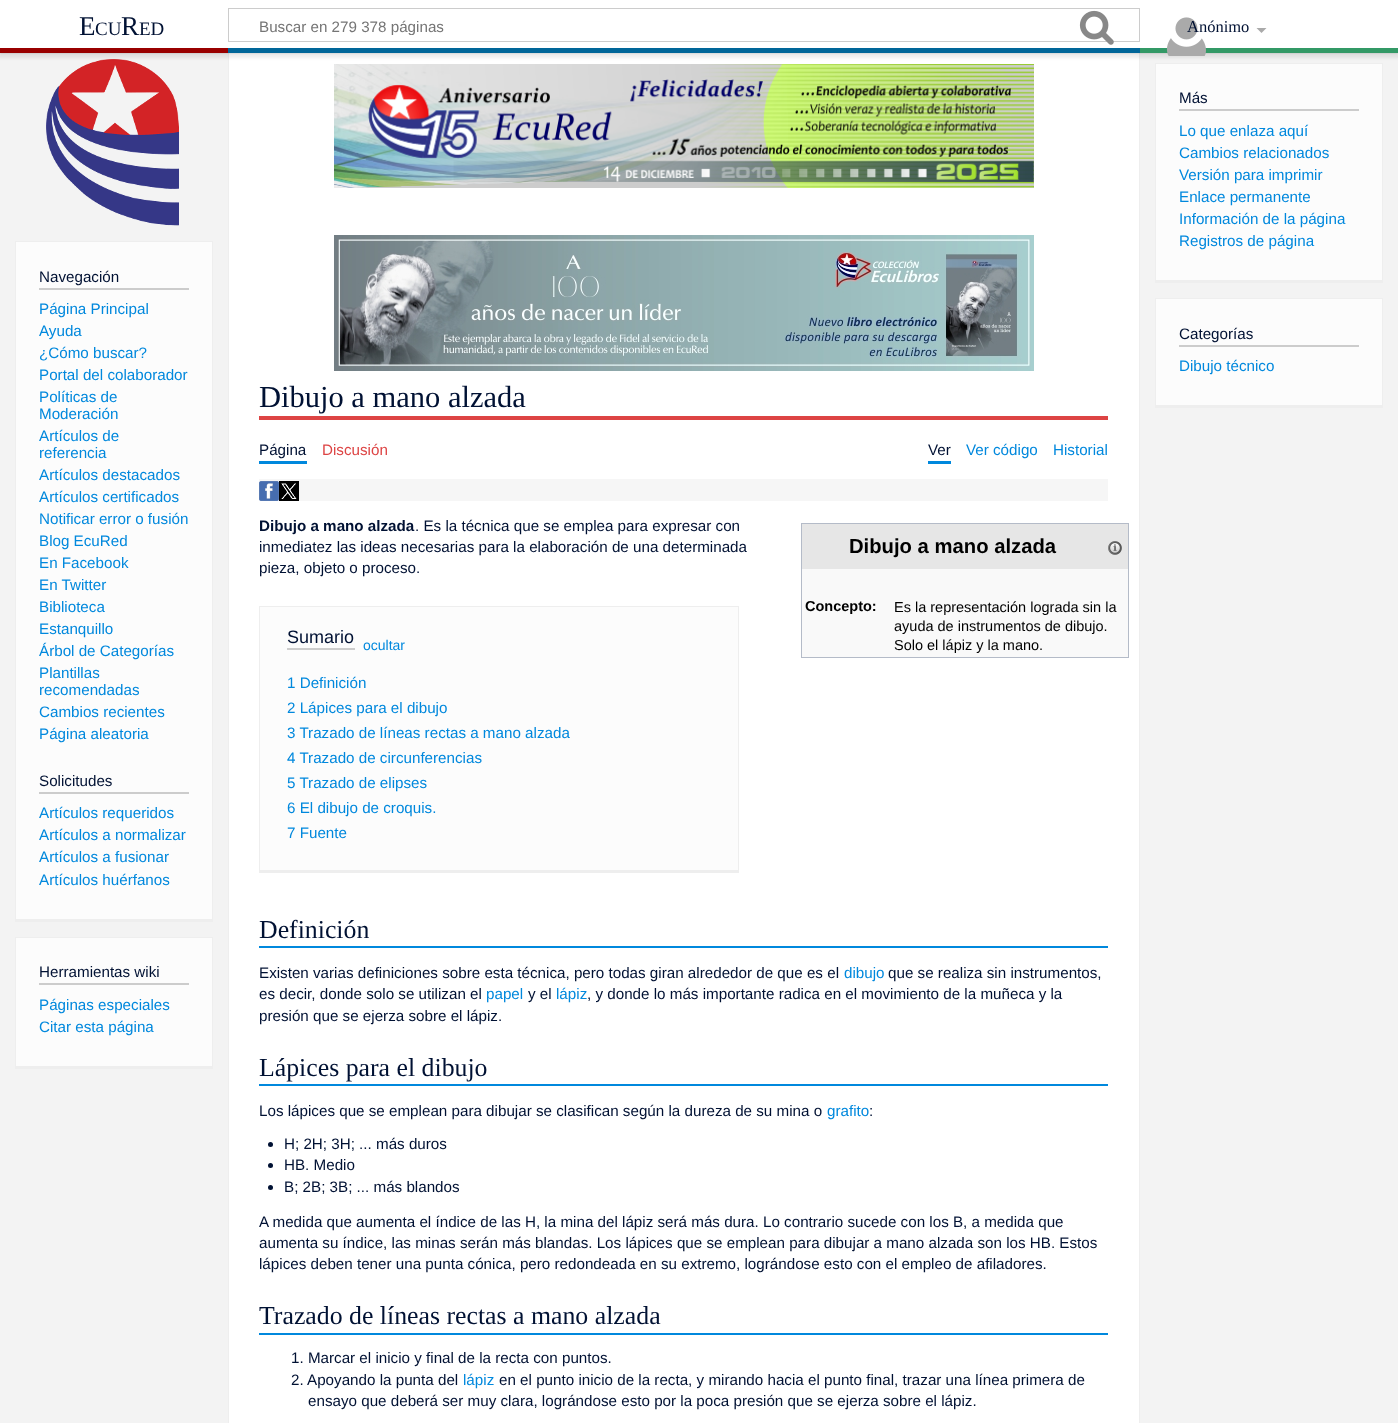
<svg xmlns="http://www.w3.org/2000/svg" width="1398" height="1423">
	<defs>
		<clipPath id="clip1"><rect x="259" y="18" width="807" height="17" /></clipPath>
	</defs>
	<rect width="100%" height="100%" fill="#F3F3F3" />
	<rect x="229" y="53" width="910" height="1370" fill="#FFFFFF" />
	<rect x="1139" y="48" width="1" height="1375" fill="#EEEEEE" />
	<rect x="228" y="48" width="1" height="1375" fill="#EEEEEE" />
	<rect x="0" y="48" width="1398" height="5" fill="#000000" fill-opacity="0.2" filter="blur(1px)" />
	<rect x="1155" y="63" width="228" height="1" fill="#EEEEEE" />
	<rect x="1382" y="63" width="1" height="220" fill="#EEEEEE" />
	<rect x="1155" y="280" width="228" height="3" fill="#EEEEEE" />
	<rect x="1155" y="63" width="1" height="220" fill="#EEEEEE" />
	<image x="46" y="59" width="133" height="167" href="assets/img3.png" />
	<rect x="-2" y="49" width="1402" height="9" fill="#000000" fill-opacity="0.07" filter="blur(1.5px)" />
	<rect x="0" y="0" width="1398" height="48" fill="#FFFFFF" />
	<text x="79" y="35" font-family="Liberation Serif" font-size="27" fill="#001133">E</text>
	<text x="95" y="35" font-family="Liberation Serif" font-size="19" fill="#001133">CU</text>
	<text x="121" y="35" font-family="Liberation Serif" font-size="27" fill="#001133">R</text>
	<text x="139" y="35" font-family="Liberation Serif" font-size="19" fill="#001133">ED</text>
	<rect x="228.5" y="8.5" width="911" height="33" fill="none" stroke="#CCCCCC" />
	<g clip-path="url(#clip1)">
		<text x="259" y="32" font-family="Liberation Sans" font-size="15.2" fill="#757575">Buscar en 279 378 páginas</text>
	</g>
	<image x="1079" y="10" width="35" height="35" href="assets/img1.png" />
	<rect x="1140" y="48" width="258" height="5" fill="#339966" />
	<image x="1166" y="17" width="40" height="39" href="assets/img2.png" />
	<text x="1187" y="32" font-family="Liberation Serif" font-size="16.5" fill="#001133">Anónimo</text>
	<path d="M1266.5 28L1261.5 33L1256.5 28Z" fill="#AAAAAA" />
	<rect x="0" y="48" width="228" height="5" fill="#990000" />
	<rect x="228" y="48" width="912" height="5" fill="#006699" />
	<rect x="1156" y="64" width="226" height="216" fill="#FCFCFC" />
	<rect x="1179" y="109" width="180" height="2" fill="#CCCCCC" />
	<text x="1179" y="103" font-family="Liberation Sans" font-size="15.2" fill="#001133">Más</text>
	<g font-family="Liberation Sans" font-size="15.2" fill="#0088DD">
		<text x="1179" y="136">Lo que enlaza aquí</text>
		<text x="1179" y="158">Cambios relacionados</text>
		<text x="1179" y="180">Versión para imprimir</text>
		<text x="1179" y="202">Enlace permanente</text>
		<text x="1179" y="224">Información de la página</text>
		<text x="1179" y="246">Registros de página</text>
	</g>
	<rect x="1156" y="299" width="226" height="106" fill="#FCFCFC" />
	<rect x="1155" y="298" width="228" height="1" fill="#EEEEEE" />
	<rect x="1382" y="298" width="1" height="110" fill="#EEEEEE" />
	<rect x="1155" y="405" width="228" height="3" fill="#EEEEEE" />
	<rect x="1155" y="298" width="1" height="110" fill="#EEEEEE" />
	<rect x="1179" y="345" width="180" height="2" fill="#CCCCCC" />
	<text x="1179" y="339" font-family="Liberation Sans" font-size="15.2" fill="#001133">Categorías</text>
	<text x="1179" y="371" font-family="Liberation Sans" font-size="15.2" fill="#0088DD">Dibujo técnico</text>
	<rect x="16" y="242" width="196" height="677" fill="#FCFCFC" />
	<rect x="15" y="241" width="198" height="1" fill="#EEEEEE" />
	<rect x="212" y="241" width="1" height="681" fill="#EEEEEE" />
	<rect x="15" y="919" width="198" height="3" fill="#EEEEEE" />
	<rect x="15" y="241" width="1" height="681" fill="#EEEEEE" />
	<rect x="39" y="288" width="150" height="2" fill="#CCCCCC" />
	<text x="39" y="282" font-family="Liberation Sans" font-size="15.2" fill="#001133">Navegación</text>
	<g font-family="Liberation Sans" font-size="15.2" fill="#0088DD">
		<text x="39" y="314">Página Principal</text>
		<text x="39" y="336">Ayuda</text>
		<text x="39" y="358">¿Cómo buscar?</text>
		<text x="39" y="380">Portal del colaborador</text>
		<text x="39" y="402">Políticas de</text>
		<text x="39" y="419">Moderación</text>
		<text x="39" y="441">Artículos de</text>
		<text x="39" y="458">referencia</text>
		<text x="39" y="480">Artículos destacados</text>
		<text x="39" y="502">Artículos certificados</text>
		<text x="39" y="524">Notificar error o fusión</text>
		<text x="39" y="546">Blog EcuRed</text>
		<text x="39" y="568">En Facebook</text>
		<text x="39" y="590">En Twitter</text>
		<text x="39" y="612">Biblioteca</text>
		<text x="39" y="634">Estanquillo</text>
		<text x="39" y="656">Árbol de Categorías</text>
		<text x="39" y="678">Plantillas</text>
		<text x="39" y="695">recomendadas</text>
		<text x="39" y="717">Cambios recientes</text>
		<text x="39" y="739">Página aleatoria</text>
	</g>
	<rect x="39" y="792" width="150" height="2" fill="#CCCCCC" />
	<text x="39" y="786" font-family="Liberation Sans" font-size="15.2" fill="#001133">Solicitudes</text>
	<g font-family="Liberation Sans" font-size="15.2" fill="#0088DD">
		<text x="39" y="818">Artículos requeridos</text>
		<text x="39" y="840">Artículos a normalizar</text>
		<text x="39" y="862">Artículos a fusionar</text>
		<text x="39" y="885">Artículos huérfanos</text>
	</g>
	<rect x="16" y="938" width="196" height="128" fill="#FCFCFC" />
	<rect x="15" y="937" width="198" height="1" fill="#EEEEEE" />
	<rect x="212" y="937" width="1" height="132" fill="#EEEEEE" />
	<rect x="15" y="1066" width="198" height="3" fill="#EEEEEE" />
	<rect x="15" y="937" width="1" height="132" fill="#EEEEEE" />
	<rect x="39" y="983" width="150" height="2" fill="#CCCCCC" />
	<text x="39" y="977" font-family="Liberation Sans" font-size="15.2" fill="#001133">Herramientas wiki</text>
	<g font-family="Liberation Sans" font-size="15.2" fill="#0088DD">
		<text x="39" y="1010">Páginas especiales</text>
		<text x="39" y="1032">Citar esta página</text>
	</g>
	<image x="334" y="64" width="700" height="124" href="assets/img4.png" />
	<image x="334" y="235" width="700" height="136" href="assets/img5.png" />
	<rect x="259" y="416" width="849" height="4" fill="#DD4444" />
	<text x="259" y="407" font-family="Liberation Serif" font-size="30.5" fill="#001133">Dibujo a mano alzada</text>
	<rect x="259" y="461" width="48" height="3" fill="#0088DD" />
	<text x="259" y="455" font-family="Liberation Sans" font-size="15.2" fill="#001133">Página</text>
	<text x="322" y="455" font-family="Liberation Sans" font-size="15.2" fill="#DD4444">Discusión</text>
	<rect x="928" y="461" width="23" height="3" fill="#0088DD" />
	<text x="928" y="455" font-family="Liberation Sans" font-size="15.2" fill="#001133">Ver</text>
	<g font-family="Liberation Sans" font-size="15.2" fill="#0088DD">
		<text x="966" y="455">Ver código</text>
		<text x="1053" y="455">Historial</text>
	</g>
	<rect x="259" y="479" width="849" height="22" fill="#F6F6F6" />
	<image x="259" y="481" width="20" height="20" href="assets/img6.png" />
	<image x="279" y="481" width="20" height="20" href="assets/img7.png" />
	<text x="259" y="531" font-family="Liberation Sans" font-size="15.2" font-weight="700" fill="#001133">Dibujo a mano alzada</text>
	<g font-family="Liberation Sans" font-size="15.2" fill="#001133">
		<text x="415" y="531">. Es la técnica que se emplea para expresar con</text>
		<text x="259" y="552">inmediatez las ideas necesarias para la elaboración de una determinada</text>
		<text x="259" y="573">pieza, objeto o proceso.</text>
	</g>
	<rect x="802" y="569" width="326" height="88" fill="#F9F9F9" />
	<rect x="801" y="523" width="328" height="1" fill="#B4BBC8" />
	<rect x="1128" y="523" width="1" height="135" fill="#B4BBC8" />
	<rect x="801" y="657" width="328" height="1" fill="#B4BBC8" />
	<rect x="801" y="523" width="1" height="135" fill="#B4BBC8" />
	<rect x="802" y="524" width="326" height="45" fill="#E6E6E6" />
	<text x="849" y="553" font-family="Liberation Sans" font-size="20.25" font-weight="700" fill="#000000">Dibujo a mano alzada</text>
	<image x="1108" y="541" width="14" height="14" href="assets/img8.png" />
	<text x="805" y="611" font-family="Liberation Sans" font-size="14.5" font-weight="700" fill="#000000">Concepto:</text>
	<g font-family="Liberation Sans" font-size="14.5" fill="#000000">
		<text x="894" y="612">Es la representación lograda sin la</text>
		<text x="894" y="631">ayuda de instrumentos de dibujo.</text>
		<text x="894" y="650">Solo el lápiz y la mano.</text>
	</g>
	<rect x="260" y="607" width="478" height="263" fill="#FCFCFC" />
	<rect x="259" y="606" width="480" height="1" fill="#EEEEEE" />
	<rect x="738" y="606" width="1" height="267" fill="#EEEEEE" />
	<rect x="259" y="870" width="480" height="3" fill="#EEEEEE" />
	<rect x="259" y="606" width="1" height="267" fill="#EEEEEE" />
	<rect x="287" y="648" width="68" height="2" fill="#CCCCCC" />
	<text x="287" y="643" font-family="Liberation Sans" font-size="18" fill="#001133">Sumario</text>
	<text x="363" y="650" font-family="Liberation Sans" font-size="14" fill="#0088DD">ocultar</text>
	<g font-family="Liberation Sans" font-size="15.2" fill="#0088DD">
		<text x="287" y="688">1 Definición</text>
		<text x="287" y="713">2 Lápices para el dibujo</text>
		<text x="287" y="738">3 Trazado de líneas rectas a mano alzada</text>
		<text x="287" y="763">4 Trazado de circunferencias</text>
		<text x="287" y="788">5 Trazado de elipses</text>
		<text x="287" y="813">6 El dibujo de croquis.</text>
		<text x="287" y="838">7 Fuente</text>
	</g>
	<rect x="259" y="946" width="849" height="2" fill="#0088DD" />
	<text x="259" y="938" font-family="Liberation Serif" font-size="25.8" fill="#001133">Definición</text>
	<text x="259" y="978" font-family="Liberation Sans" font-size="15.2" fill="#001133">Existen varias definiciones sobre esta técnica, pero todas giran alrededor de que es el</text>
	<text x="844" y="978" font-family="Liberation Sans" font-size="15.2" fill="#0088DD">dibujo</text>
	<g font-family="Liberation Sans" font-size="15.2" fill="#001133">
		<text x="888" y="978">que se realiza sin instrumentos,</text>
		<text x="259" y="999">es decir, donde solo se utilizan el</text>
	</g>
	<text x="486" y="999" font-family="Liberation Sans" font-size="15.2" fill="#0088DD">papel</text>
	<text x="528" y="999" font-family="Liberation Sans" font-size="15.2" fill="#001133">y el</text>
	<text x="556" y="999" font-family="Liberation Sans" font-size="15.2" fill="#0088DD">lápiz</text>
	<g font-family="Liberation Sans" font-size="15.2" fill="#001133">
		<text x="587" y="999">, y donde lo más importante radica en el movimiento de la muñeca y la</text>
		<text x="259" y="1021">presión que se ejerza sobre el lápiz.</text>
	</g>
	<rect x="259" y="1084" width="849" height="2" fill="#0088DD" />
	<text x="259" y="1076" font-family="Liberation Serif" font-size="25.8" fill="#001133">Lápices para el dibujo</text>
	<text x="259" y="1116" font-family="Liberation Sans" font-size="15.2" fill="#001133">Los lápices que se emplean para dibujar se clasifican según la dureza de su mina o</text>
	<text x="827" y="1116" font-family="Liberation Sans" font-size="15.2" fill="#0088DD">grafito</text>
	<text x="869" y="1116" font-family="Liberation Sans" font-size="15.2" fill="#001133">:</text>
	<circle cx="270.5" cy="1144.5" r="2.5" fill="#001133" />
	<text x="284" y="1149" font-family="Liberation Sans" font-size="15.2" fill="#001133">H; 2H; 3H; ... más duros</text>
	<circle cx="270.5" cy="1165.5" r="2.5" fill="#001133" />
	<text x="284" y="1170" font-family="Liberation Sans" font-size="15.2" fill="#001133">HB. Medio</text>
	<circle cx="270.5" cy="1187.5" r="2.5" fill="#001133" />
	<g font-family="Liberation Sans" font-size="15.2" fill="#001133">
		<text x="284" y="1192">B; 2B; 3B; ... más blandos</text>
		<text x="259" y="1227">A medida que aumenta el índice de las H, la mina del lápiz será más dura. Lo contrario sucede con los B, a medida que</text>
		<text x="259" y="1248">aumenta su índice, las minas serán más blandas. Los lápices que se emplean para dibujar a mano alzada son los HB. Estos</text>
		<text x="259" y="1269">lápices deben tener una punta cónica, pero redondeada en su extremo, lográndose esto con el empleo de afiladores.</text>
	</g>
	<rect x="259" y="1333" width="849" height="2" fill="#0088DD" />
	<text x="259" y="1324" font-family="Liberation Serif" font-size="25.8" fill="#001133">Trazado de líneas rectas a mano alzada</text>
	<g font-family="Liberation Sans" font-size="15.2" fill="#001133">
		<text x="291" y="1363">1. Marcar el inicio y final de la recta con puntos.</text>
		<text x="291" y="1385">2. Apoyando la punta del</text>
	</g>
	<text x="463" y="1385" font-family="Liberation Sans" font-size="15.2" fill="#0088DD">lápiz</text>
	<g font-family="Liberation Sans" font-size="15.2" fill="#001133">
		<text x="499" y="1385">en el punto inicio de la recta, y mirando hacia el punto final, trazar una línea primera de</text>
		<text x="308" y="1406">ensayo que deberá ser muy clara, lográndose esto por la poca presión que se ejerza sobre el lápiz.</text>
	</g>
</svg>
